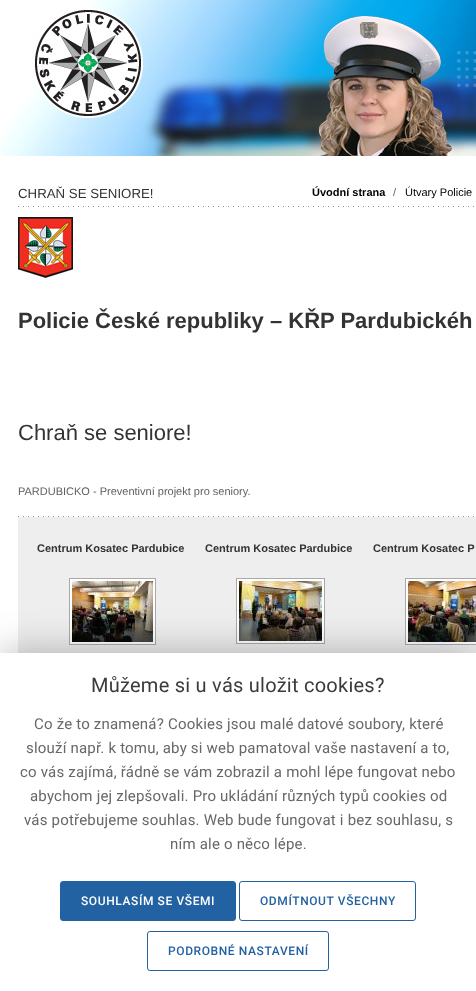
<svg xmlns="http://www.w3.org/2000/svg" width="476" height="991">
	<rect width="100%" height="100%" fill="#FFFFFF" />
	<image x="0" y="0" width="476" height="156" href="assets/img1.png" />
	<image x="32" y="8" width="151" height="137" href="assets/img2.png" />
	<image x="18" y="206" width="456" height="1" href="assets/img3.png" />
	<text x="18" y="198" font-family="Liberation Sans" font-size="13.25" fill="#333333">CHRAŇ SE SENIORE!</text>
	<text x="312" y="196" font-family="Liberation Sans" font-size="11" font-weight="700" fill="#000000">Úvodní strana</text>
	<text x="393" y="196" font-family="Liberation Sans" font-size="11" fill="#5F5F5F">/</text>
	<text x="405" y="196" font-family="Liberation Sans" font-size="11" fill="#000000">Útvary Policie</text>
	<image x="18" y="217" width="55" height="61" href="assets/img4.png" />
	<text x="18" y="328" font-family="Liberation Sans" font-size="22" font-weight="700" fill="#333333">Policie České republiky – KŘP Pardubickéh</text>
	<text x="18" y="440" font-family="Liberation Sans" font-size="22" fill="#333333">Chraň se seniore!</text>
	<text x="18" y="495" font-family="Liberation Sans" font-size="11" fill="#5F5F5F">PARDUBICKO - Preventivní projekt pro seniory.</text>
	<rect x="18" y="517" width="458" height="136" fill="#EEEEEE" />
	<image x="18" y="516" width="458" height="1" href="assets/img5.png" />
	<text x="37" y="552" font-family="Liberation Sans" font-size="11" font-weight="700" fill="#333333">Centrum Kosatec Pardubice</text>
	<rect x="69.5" y="578.5" width="86" height="66" fill="#FFFFFF" stroke="#A9A9A9" />
	<image x="72" y="581" width="81" height="61" href="assets/img6.png" />
	<text x="205" y="552" font-family="Liberation Sans" font-size="11" font-weight="700" fill="#333333">Centrum Kosatec Pardubice</text>
	<rect x="236.5" y="578.5" width="88" height="65" fill="#FFFFFF" stroke="#A9A9A9" />
	<image x="239" y="581" width="83" height="60" href="assets/img7.png" />
	<text x="373" y="552" font-family="Liberation Sans" font-size="11" font-weight="700" fill="#333333">Centrum Kosatec P</text>
	<rect x="405.5" y="578.5" width="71" height="66" fill="#FFFFFF" stroke="#A9A9A9" />
	<image x="408" y="581" width="68" height="61" href="assets/img8.png" />
	<rect x="0" y="654" width="476" height="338" fill="#3B3B3B" fill-opacity="0.4" filter="blur(20px)" />
	<rect x="0" y="653" width="476" height="338" fill="#FFFFFF" />
	<text x="91" y="692" font-family="Roboto" font-size="20" letter-spacing="0.25" fill="#3B3B3B">Můžeme si u vás uložit cookies?</text>
	<g font-family="Roboto" font-size="15" letter-spacing="0.2" fill="#686868">
		<text x="34" y="729">Co že to znamená? Cookies jsou malé datové soubory, které</text>
		<text x="26" y="753">slouží např. k tomu, aby si web pamatoval vaše nastavení a to,</text>
		<text x="20" y="777">co vás zajímá, řádně se vám zobrazil a mohl lépe fungovat nebo</text>
		<text x="30" y="801">abychom jej zlepšovali. Pro ukládání různých typů cookies od</text>
		<text x="24" y="825">vás potřebujeme souhlas. Web bude fungovat i bez souhlasu, s</text>
		<text x="170" y="849">ním ale o něco lépe.</text>
	</g>
	<rect x="60.5" y="881.5" width="175" height="39" rx="2.5" fill="#2362A2" stroke="#2362A2" />
	<text x="81" y="905" font-family="Roboto" font-size="12" font-weight="500" letter-spacing="0.6" fill="#FFFFFF">SOUHLASÍM SE VŠEMI</text>
	<rect x="239.5" y="881.5" width="176" height="39" rx="2.5" fill="none" stroke="#2362A2" />
	<text x="260" y="905" font-family="Roboto" font-size="12" font-weight="500" letter-spacing="0.6" fill="#2362A2">ODMÍTNOUT VŠECHNY</text>
	<rect x="147.5" y="931.5" width="181" height="39" rx="2.5" fill="none" stroke="#2362A2" />
	<text x="168" y="955" font-family="Roboto" font-size="12" font-weight="500" letter-spacing="0.6" fill="#2362A2">PODROBNÉ NASTAVENÍ</text>
</svg>
